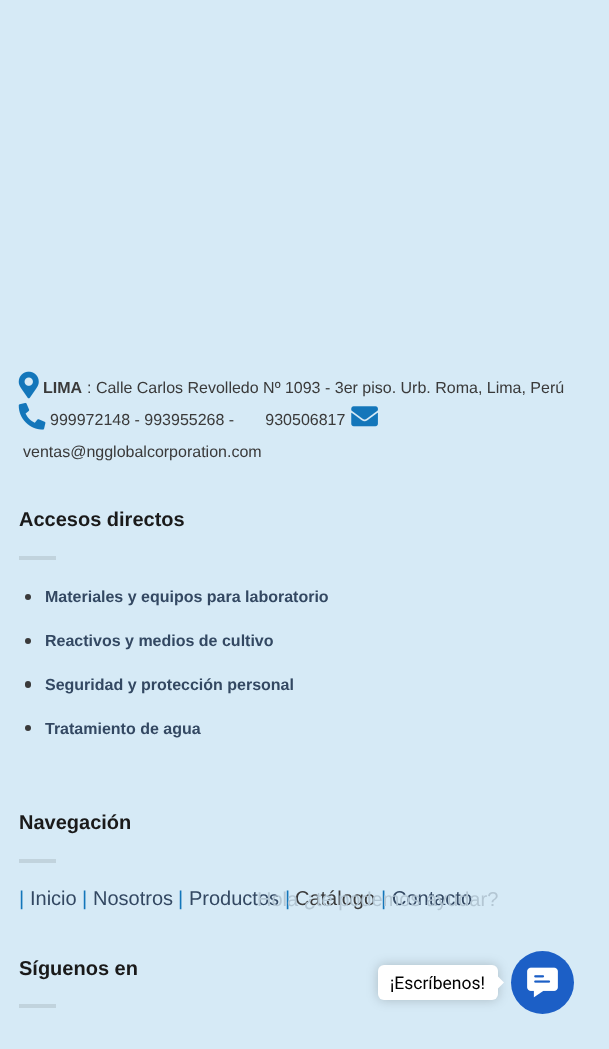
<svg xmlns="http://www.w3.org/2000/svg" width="609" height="1049">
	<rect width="100%" height="100%" fill="#D6EAF6" />
	<image x="18" y="371" width="21" height="28" href="assets/img1.png" />
	<text x="43" y="393" font-family="Arimo" font-size="16" font-weight="700" fill="#3A3A3A">LIMA</text>
	<text x="87" y="393" font-family="Arimo" font-size="16" fill="#3A3A3A">: Calle Carlos Revolledo Nº 1093 - 3er piso. Urb. Roma, Lima, Perú</text>
	<image x="18" y="402" width="28" height="28" href="assets/img2.png" />
	<text x="50" y="425" font-family="Arimo" font-size="16" fill="#3A3A3A" xml:space="preserve">999972148 - 993955268 -       930506817</text>
	<image x="351" y="406" width="27" height="21" href="assets/img3.png" />
	<text x="23" y="457" font-family="Arimo" font-size="16" fill="#3A3A3A">ventas@ngglobalcorporation.com</text>
	<text x="19" y="526" font-family="Arimo" font-size="20" font-weight="700" fill="#1A1A1A">Accesos directos</text>
	<rect x="19" y="556" width="37" height="4" fill="#C1D3DD" />
	<circle cx="28" cy="597" r="3" fill="#3A3A3A" />
	<text x="45" y="602" font-family="Arimo" font-size="16" font-weight="700" fill="#334862">Materiales y equipos para laboratorio</text>
	<circle cx="28" cy="641" r="3" fill="#3A3A3A" />
	<text x="45" y="646" font-family="Arimo" font-size="16" font-weight="700" fill="#334862">Reactivos y medios de cultivo</text>
	<rect x="25" y="681" width="6" height="7" rx="3" fill="#3A3A3A" />
	<text x="45" y="690" font-family="Arimo" font-size="16" font-weight="700" fill="#334862">Seguridad y protección personal</text>
	<circle cx="28" cy="728" r="3" fill="#3A3A3A" />
	<text x="45" y="734" font-family="Arimo" font-size="16" font-weight="700" fill="#334862">Tratamiento de agua</text>
	<text x="19" y="829" font-family="Arimo" font-size="20" font-weight="700" fill="#1A1A1A">Navegación</text>
	<rect x="19" y="859" width="37" height="4" fill="#C1D3DD" />
	<text x="19" y="905" font-family="Arimo" font-size="20" fill="#1376BA">|</text>
	<text x="30" y="905" font-family="Arimo" font-size="20" fill="#334862">Inicio</text>
	<text x="82" y="905" font-family="Arimo" font-size="20" fill="#1376BA">|</text>
	<text x="93" y="905" font-family="Arimo" font-size="20" fill="#334862">Nosotros</text>
	<text x="178" y="905" font-family="Arimo" font-size="20" fill="#1376BA">|</text>
	<text x="189" y="905" font-family="Arimo" font-size="20" fill="#334862">Productos</text>
	<text x="285" y="905" font-family="Arimo" font-size="20" fill="#1376BA">|</text>
	<text x="295" y="905" font-family="Arimo" font-size="20" fill="#3A3A3A">Catálogo</text>
	<text x="381" y="905" font-family="Arimo" font-size="20" fill="#1376BA">|</text>
	<text x="392" y="905" font-family="Arimo" font-size="20" fill="#334862">Contacto</text>
	<text x="19" y="975" font-family="Arimo" font-size="20" font-weight="700" fill="#1A1A1A">Síguenos en</text>
	<rect x="19" y="1004" width="37" height="4" fill="#C1D3DD" />
	<text x="257" y="906" font-family="Arimo" font-size="20" fill="#B3C6D3">Hola ¿te podemos ayudar?</text>
	<circle cx="542.5" cy="982.5" r="31.5" fill="#1C5FC6" />
	<rect x="378" y="965" width="120" height="35" rx="6" fill="#000000" fill-opacity="0.2" filter="blur(6px)" />
	<rect x="378" y="965" width="120" height="35" rx="6" fill="#FFFFFF" />
	<text x="390" y="989" font-family="Roboto" font-size="17.5" fill="#000000">¡Escríbenos!</text>
	<path d="M497.5 989V976L504 982.5Z" fill="#FFFFFF" />
	<image x="527" y="967" width="31" height="31" href="assets/img4.png" />
</svg>
